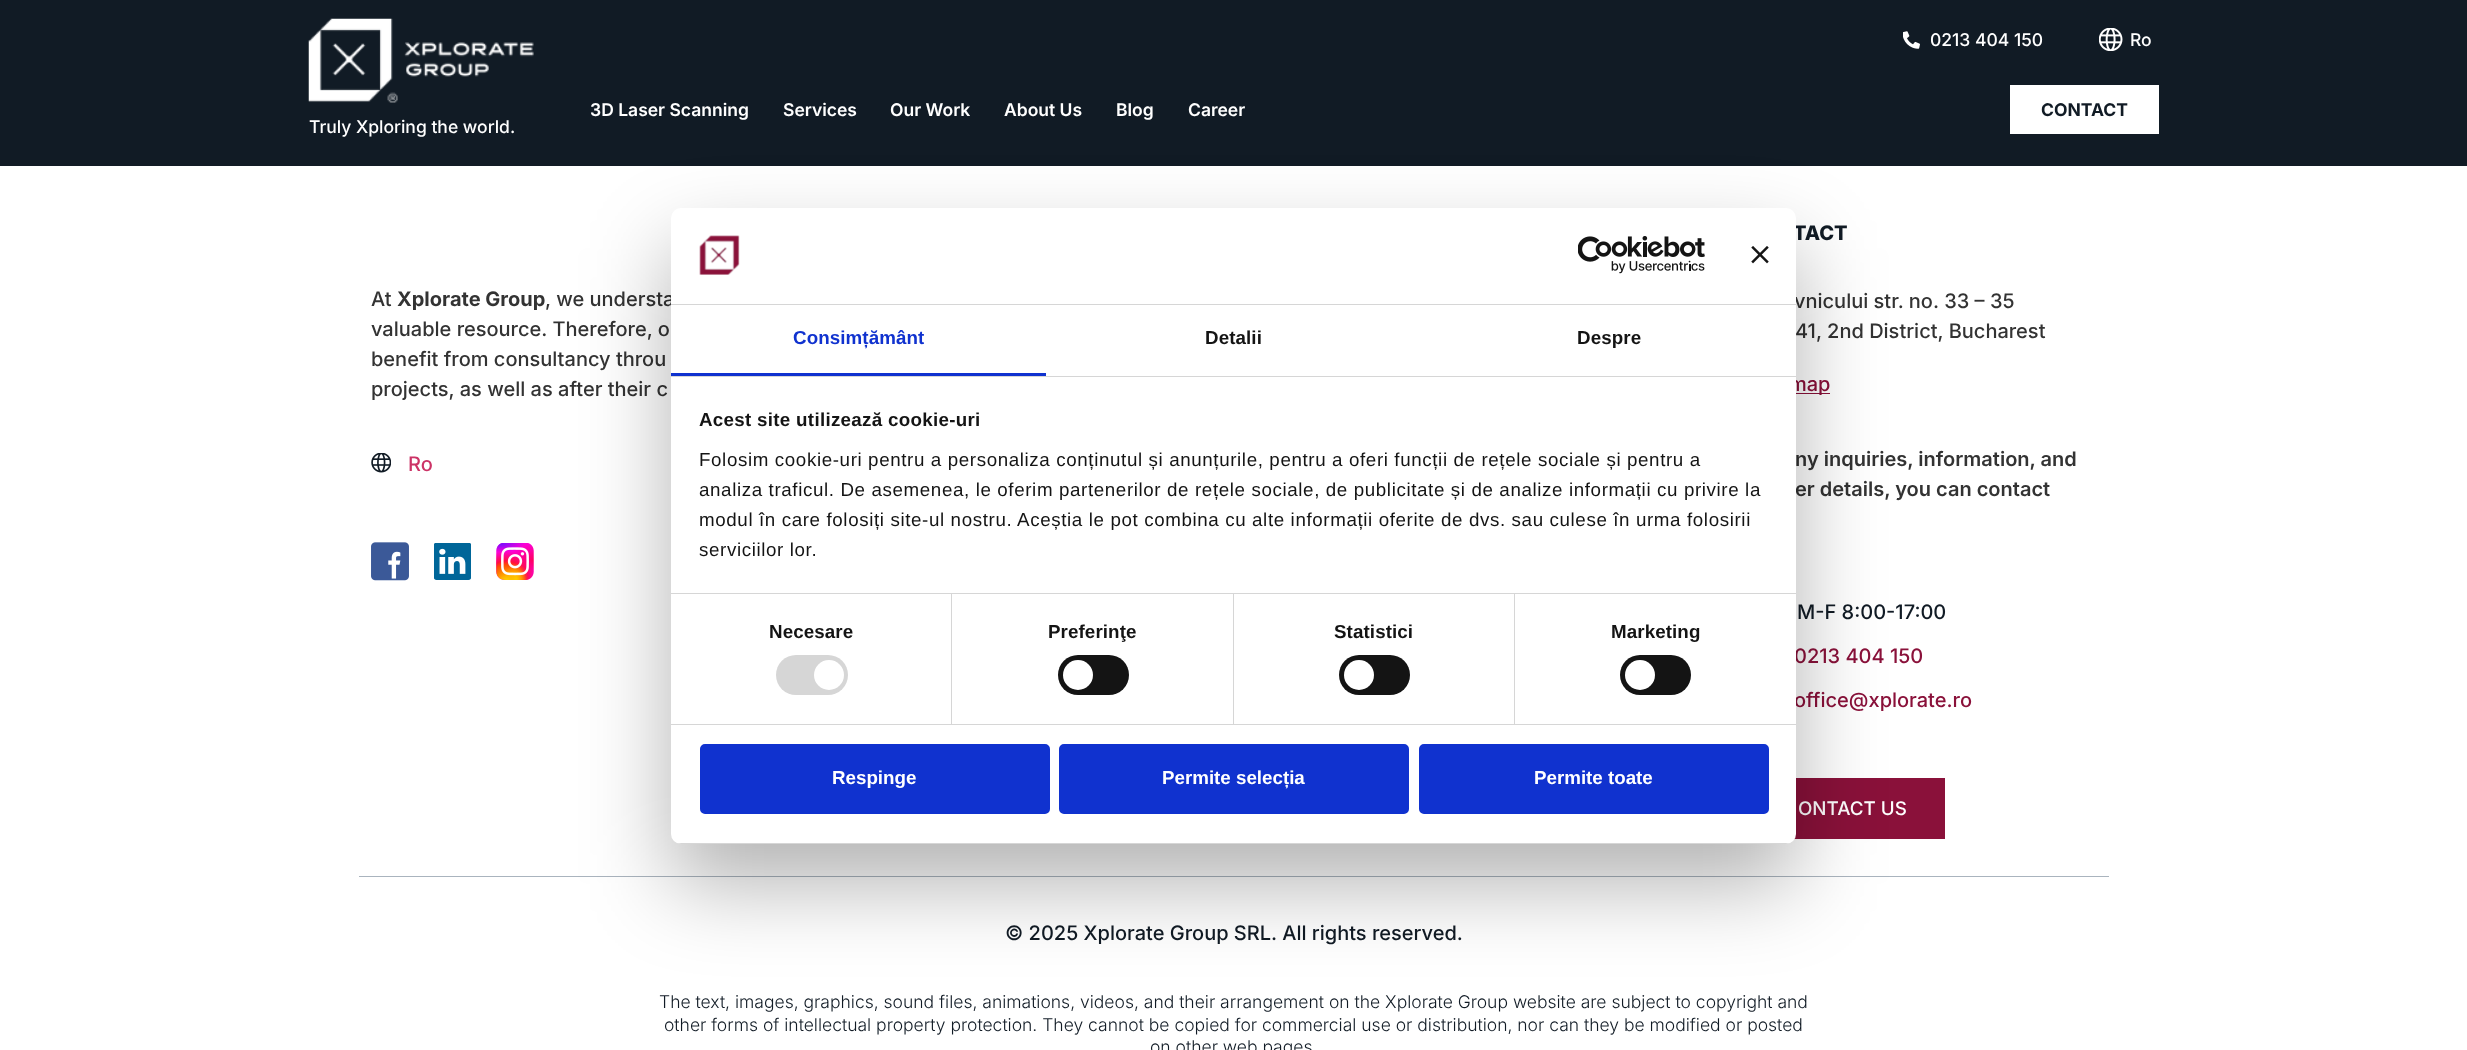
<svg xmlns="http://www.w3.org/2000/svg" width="2467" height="1050">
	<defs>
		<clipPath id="clip1"><rect x="671" y="208" width="1125" height="636" rx="10" /></clipPath>
	</defs>
	<rect width="100%" height="100%" fill="#FFFFFF" />
	<rect x="0" y="0" width="2467" height="166" fill="#111B25" />
	<image x="1903" y="31" width="17" height="18" href="assets/img1.png" />
	<text x="1930" y="46" font-family="Inter" font-size="17.5" font-weight="500" fill="#FFFFFF">0213 404 150</text>
	<image x="2099" y="28" width="24" height="23" href="assets/img2.png" />
	<text x="2130" y="46" font-family="Inter" font-size="17.5" font-weight="500" fill="#FFFFFF">Ro</text>
	<g font-family="Inter" font-size="17.5" font-weight="600" fill="#FFFFFF">
		<text x="590" y="116">3D Laser Scanning</text>
		<text x="783" y="116">Services</text>
		<text x="890" y="116">Our Work</text>
		<text x="1004" y="116">About Us</text>
		<text x="1116" y="116">Blog</text>
		<text x="1188" y="116">Career</text>
	</g>
	<rect x="2010" y="85" width="149" height="49" fill="#FFFFFF" />
	<text x="2041" y="116" font-family="Inter" font-size="17.5" font-weight="700" fill="#111B25">CONTACT</text>
	<image x="308" y="18" width="226" height="85" href="assets/img3.png" />
	<text x="309" y="133" font-family="Inter" font-size="17.5" font-weight="500" fill="#FFFFFF">Truly Xploring the world.</text>
	<text x="371" y="306" font-family="Inter" font-size="20" font-weight="500" fill="#333333">At</text>
	<text x="397" y="306" font-family="Inter" font-size="20" font-weight="700" fill="#333333">Xplorate Group</text>
	<g font-family="Inter" font-size="20" font-weight="500" fill="#333333">
		<text x="545" y="306">, we understa</text>
		<text x="371" y="336">valuable resource. Therefore, o</text>
		<text x="371" y="366">benefit from consultancy throu</text>
		<text x="371" y="396">projects, as well as after their c</text>
	</g>
	<image x="371" y="453" width="20" height="20" href="assets/img4.png" />
	<text x="408" y="471" font-family="Inter" font-size="20" font-weight="500" fill="#CC3366">Ro</text>
	<image x="371" y="542" width="38" height="39" href="assets/img5.png" />
	<image x="434" y="543" width="37" height="37" href="assets/img6.png" />
	<image x="496" y="543" width="38" height="37" href="assets/img7.png" />
	<text x="1793" y="240" font-family="Inter" font-size="20" font-weight="800" fill="#111B25">TACT</text>
	<g font-family="Inter" font-size="20" font-weight="500" fill="#333333">
		<text x="1794" y="308">vnicului str. no. 33 – 35</text>
		<text x="1795" y="338">41, 2nd District, Bucharest</text>
	</g>
	<rect x="1796" y="393" width="34" height="1" fill="#8A113A" />
	<text x="1789" y="391" font-family="Inter" font-size="20" font-weight="500" fill="#8A113A">map</text>
	<g font-family="Inter" font-size="20" font-weight="600" fill="#333333">
		<text x="1795" y="466">ny inquiries, information, and</text>
		<text x="1795" y="496">er details, you can contact</text>
	</g>
	<text x="1797" y="619" font-family="Inter" font-size="20" font-weight="500" fill="#111B25">M-F 8:00-17:00</text>
	<g font-family="Inter" font-size="20" font-weight="500" fill="#8A113A">
		<text x="1794" y="663">0213 404 150</text>
		<text x="1794" y="707">office@xplorate.ro</text>
	</g>
	<rect x="1794" y="778" width="151" height="61" fill="#8A113A" />
	<text x="1798" y="815" font-family="Inter" font-size="18.75" font-weight="500" fill="#FFFFFF">ONTACT US</text>
	<rect x="359" y="876" width="1750" height="1" fill="#AAB4BE" />
	<text x="1005" y="940" font-family="Inter" font-size="20" font-weight="500" fill="#111B25">© 2025 Xplorate Group SRL. All rights reserved.</text>
	<g font-family="Inter" font-size="17.5" font-weight="300" fill="#111B25">
		<text x="659" y="1008">The text, images, graphics, sound files, animations, videos, and their arrangement on the Xplorate Group website are subject to copyright and</text>
		<text x="664" y="1031">other forms of intellectual property protection. They cannot be copied for commercial use or distribution, nor can they be modified or posted</text>
		<text x="1150" y="1053">on other web pages</text>
	</g>
	<rect x="671" y="248" width="1125" height="636" rx="10" fill="#000000" fill-opacity="0.3" filter="blur(42.5px)" />
	<rect x="671" y="208" width="1125" height="636" rx="10" fill="#FFFFFF" />
	<rect x="671" y="304" width="1125" height="1" fill="#D6D6D6" />
	<image x="699" y="235" width="41" height="40" href="assets/img8.png" />
	<image x="1578" y="236" width="127" height="38" href="assets/img9.png" />
	<image x="1751" y="246" width="18" height="18" href="assets/img10.png" />
	<rect x="671" y="376" width="1125" height="1" fill="#D6D6D6" />
	<rect x="671" y="373" width="375" height="3" fill="#1032CF" />
	<text x="793" y="344" font-family="Liberation Sans" font-size="18.75" font-weight="700" letter-spacing="0.1" fill="#1032CF">Consimțământ</text>
	<g font-family="Liberation Sans" font-size="18.75" font-weight="700" letter-spacing="0.1" fill="#141414">
		<text x="1205" y="344">Detalii</text>
		<text x="1577" y="344">Despre</text>
	</g>
	<rect x="671" y="593" width="1125" height="1" fill="#D6D6D6" />
	<text x="699" y="426" font-family="Liberation Sans" font-size="18.75" font-weight="700" letter-spacing="0.3" fill="#141414">Acest site utilizează cookie-uri</text>
	<g font-family="Liberation Sans" font-size="18.75" letter-spacing="0.62" fill="#141414">
		<text x="699" y="466">Folosim cookie-uri pentru a personaliza conținutul și anunțurile, pentru a oferi funcții de rețele sociale și pentru a</text>
		<text x="699" y="496">analiza traficul. De asemenea, le oferim partenerilor de rețele sociale, de publicitate și de analize informații cu privire la</text>
		<text x="699" y="526">modul în care folosiți site-ul nostru. Aceștia le pot combina cu alte informații oferite de dvs. sau culese în urma folosirii</text>
		<text x="699" y="556">serviciilor lor.</text>
	</g>
	<rect x="671" y="724" width="1125" height="1" fill="#D6D6D6" />
	<rect x="951" y="594" width="1" height="130" fill="#D6D6D6" />
	<text x="769" y="638" font-family="Liberation Sans" font-size="18.75" font-weight="700" letter-spacing="0.1" fill="#141414">Necesare</text>
	<rect x="776" y="655" width="72" height="40" rx="20" fill="#D6D6D6" />
	<circle cx="829" cy="675" r="15" fill="#FFFFFF" />
	<rect x="1233" y="594" width="1" height="130" fill="#D6D6D6" />
	<text x="1048" y="638" font-family="Liberation Sans" font-size="18.75" font-weight="700" letter-spacing="0.1" fill="#141414">Preferinţe</text>
	<rect x="1058" y="655" width="71" height="40" rx="20" fill="#141414" />
	<circle cx="1078" cy="675" r="15" fill="#FFFFFF" />
	<rect x="1514" y="594" width="1" height="130" fill="#D6D6D6" />
	<text x="1334" y="638" font-family="Liberation Sans" font-size="18.75" font-weight="700" letter-spacing="0.1" fill="#141414">Statistici</text>
	<rect x="1339" y="655" width="71" height="40" rx="20" fill="#141414" />
	<circle cx="1359" cy="675" r="15" fill="#FFFFFF" />
	<text x="1611" y="638" font-family="Liberation Sans" font-size="18.75" font-weight="700" letter-spacing="0.1" fill="#141414">Marketing</text>
	<rect x="1620" y="655" width="71" height="40" rx="20" fill="#141414" />
	<circle cx="1640" cy="675" r="15" fill="#FFFFFF" />
	<g clip-path="url(#clip1)">
		<rect x="671" y="843" width="1125" height="1" fill="#D6D6D6" />
	</g>
	<rect x="701.5" y="745.5" width="347" height="67" rx="3.5" fill="#1032CF" stroke="#1032CF" stroke-width="3" />
	<text x="832" y="784" font-family="Liberation Sans" font-size="18.75" font-weight="700" fill="#FFFFFF">Respinge</text>
	<rect x="1060.5" y="745.5" width="347" height="67" rx="3.5" fill="#1032CF" stroke="#1032CF" stroke-width="3" />
	<text x="1162" y="784" font-family="Liberation Sans" font-size="18.75" font-weight="700" fill="#FFFFFF">Permite selecția</text>
	<rect x="1420.5" y="745.5" width="347" height="67" rx="3.5" fill="#1032CF" stroke="#1032CF" stroke-width="3" />
	<text x="1534" y="784" font-family="Liberation Sans" font-size="18.75" font-weight="700" fill="#FFFFFF">Permite toate</text>
</svg>
